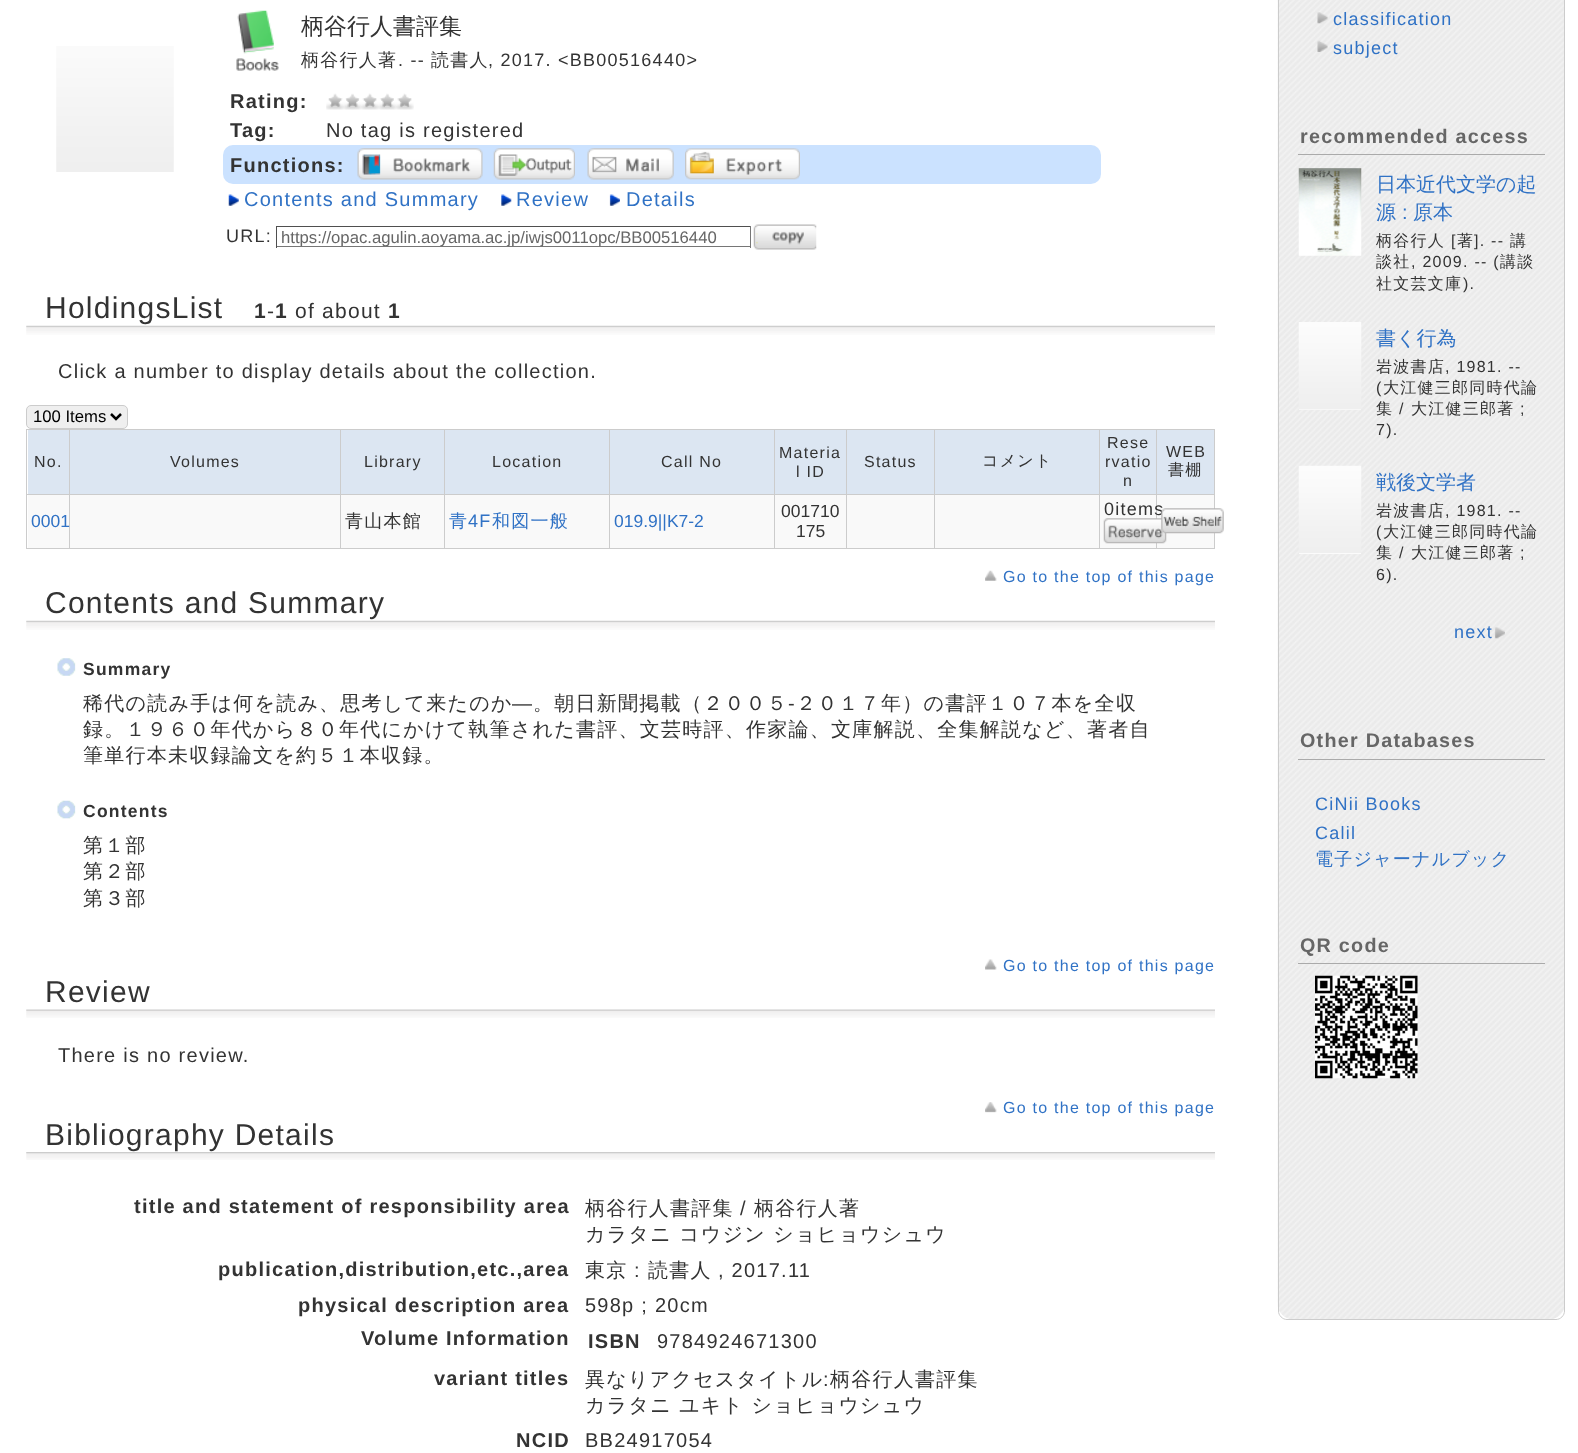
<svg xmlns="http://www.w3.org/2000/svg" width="1578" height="1453">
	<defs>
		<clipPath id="clip1"><rect x="281" y="228" width="469" height="18" /></clipPath>
	</defs>
	<rect width="100%" height="100%" fill="#FFFFFF" />
	<image x="56" y="46" width="118" height="126" href="assets/img1.png" />
	<image x="236" y="10" width="43" height="61" href="assets/img2.png" />
	<text x="301" y="34" font-family="WenQuanYi Zen Hei" font-size="23" font-weight="500" fill="#333333">柄谷行人書評集</text>
	<text x="301" y="66" font-family="WenQuanYi Zen Hei" font-size="18" font-weight="500" letter-spacing="1.25" fill="#333333">柄谷行人著</text>
	<text x="398" y="66" font-family="Liberation Sans" font-size="18" letter-spacing="1.25" fill="#333333">. --</text>
	<text x="431" y="66" font-family="WenQuanYi Zen Hei" font-size="18" font-weight="500" letter-spacing="1.25" fill="#333333">読書人</text>
	<text x="488" y="66" font-family="Liberation Sans" font-size="18" letter-spacing="1.25" fill="#333333">, 2017. &lt;BB00516440&gt;</text>
	<text x="230" y="108" font-family="Liberation Sans" font-size="20" font-weight="700" letter-spacing="1.25" fill="#333333">Rating:</text>
	<image x="326" y="93" width="88" height="17" href="assets/img3.png" />
	<text x="230" y="137" font-family="Liberation Sans" font-size="20" font-weight="700" letter-spacing="1.25" fill="#333333">Tag:</text>
	<text x="326" y="137" font-family="Liberation Sans" font-size="20" letter-spacing="1.25" fill="#333333">No tag is registered</text>
	<rect x="223" y="145" width="878" height="39" rx="10" fill="#CBE2FF" />
	<text x="230" y="172" font-family="Liberation Sans" font-size="20" font-weight="700" letter-spacing="1.25" fill="#333333">Functions:</text>
	<image x="357" y="148" width="126" height="32" href="assets/img4.png" />
	<image x="493" y="148" width="82" height="32" href="assets/img5.png" />
	<image x="587" y="148" width="87" height="32" href="assets/img6.png" />
	<image x="685" y="148" width="115" height="32" href="assets/img7.png" />
	<image x="228" y="194" width="11" height="12" href="assets/img8.png" />
	<text x="244" y="206" font-family="Liberation Sans" font-size="20" letter-spacing="1.25" fill="#3072C5">Contents and Summary</text>
	<image x="501" y="194" width="11" height="12" href="assets/img9.png" />
	<text x="516" y="206" font-family="Liberation Sans" font-size="20" letter-spacing="1.25" fill="#3072C5">Review</text>
	<image x="609" y="194" width="11" height="12" href="assets/img10.png" />
	<text x="626" y="206" font-family="Liberation Sans" font-size="20" letter-spacing="1.25" fill="#3072C5">Details</text>
	<text x="226" y="242" font-family="Liberation Sans" font-size="18" letter-spacing="1.25" fill="#333333">URL:</text>
	<rect x="276" y="226" width="475" height="1" fill="#4F4F4F" />
	<rect x="750" y="226" width="1" height="22" fill="#767676" />
	<rect x="276" y="246" width="475" height="1" fill="#767676" />
	<rect x="276" y="226" width="1" height="22" fill="#4F4F4F" />
	<g clip-path="url(#clip1)">
		<text x="281" y="243" font-family="Liberation Sans" font-size="16.7" fill="#666666">https://opac.agulin.aoyama.ac.jp/iwjs0011opc/BB00516440</text>
	</g>
	<image x="753" y="224" width="64" height="26" href="assets/img11.png" />
	<image x="26" y="325" width="1189" height="10" href="assets/img12.png" />
	<text x="45" y="318" font-family="Liberation Sans" font-size="30" letter-spacing="1.25" fill="#333333">HoldingsList</text>
	<text x="254" y="318" font-family="Liberation Sans" font-size="21" font-weight="700" letter-spacing="1.25" fill="#333333">1</text>
	<text x="267" y="318" font-family="Liberation Sans" font-size="21" letter-spacing="1.25" fill="#333333">-</text>
	<text x="275" y="318" font-family="Liberation Sans" font-size="21" font-weight="700" letter-spacing="1.25" fill="#333333">1</text>
	<text x="295" y="318" font-family="Liberation Sans" font-size="21" letter-spacing="1.25" fill="#333333">of about</text>
	<text x="388" y="318" font-family="Liberation Sans" font-size="21" font-weight="700" letter-spacing="1.25" fill="#333333">1</text>
	<text x="58" y="378" font-family="Liberation Sans" font-size="20" letter-spacing="1.25" fill="#333333">Click a number to display details about the collection.</text>
	<rect x="26.5" y="405.5" width="101" height="23" rx="4.5" fill="#EFEFEF" stroke="#CCCCCC" />
	<path d="M111 414L116 419L121 414" fill="none" stroke="#000000" stroke-width="2.5" />
	<text x="33" y="422" font-family="Liberation Sans" font-size="16.7" fill="#000000">100 Items</text>
	<rect x="26" y="429" width="1189" height="1" fill="#CCCCCC" />
	<rect x="1214" y="429" width="1" height="120" fill="#CCCCCC" />
	<rect x="26" y="548" width="1189" height="1" fill="#CCCCCC" />
	<rect x="26" y="429" width="1" height="120" fill="#CCCCCC" />
	<rect x="28" y="430" width="41" height="64" fill="#DCE6F2" />
	<text x="34" y="467" font-family="Liberation Sans" font-size="16" letter-spacing="1.25" fill="#333333">No.</text>
	<rect x="70" y="430" width="270" height="64" fill="#DCE6F2" />
	<rect x="1156" y="494" width="59" height="1" fill="#CCCCCC" />
	<rect x="1100" y="495" width="114" height="53" fill="#F9F9F9" />
	<rect x="1156" y="494" width="1" height="55" fill="#CCCCCC" />
	<rect x="1099" y="494" width="59" height="1" fill="#CCCCCC" />
	<rect x="1099" y="494" width="1" height="55" fill="#CCCCCC" />
	<rect x="934" y="494" width="166" height="1" fill="#CCCCCC" />
	<rect x="934" y="494" width="1" height="55" fill="#CCCCCC" />
	<rect x="846" y="494" width="89" height="1" fill="#CCCCCC" />
	<rect x="846" y="494" width="1" height="55" fill="#CCCCCC" />
	<rect x="774" y="494" width="74" height="1" fill="#CCCCCC" />
	<rect x="774" y="494" width="1" height="55" fill="#CCCCCC" />
	<rect x="609" y="494" width="166" height="1" fill="#CCCCCC" />
	<rect x="609" y="494" width="1" height="55" fill="#CCCCCC" />
	<rect x="444" y="494" width="166" height="1" fill="#CCCCCC" />
	<rect x="444" y="494" width="1" height="55" fill="#CCCCCC" />
	<rect x="340" y="494" width="105" height="1" fill="#CCCCCC" />
	<rect x="340" y="494" width="1" height="55" fill="#CCCCCC" />
	<rect x="69" y="494" width="272" height="1" fill="#CCCCCC" />
	<rect x="69" y="494" width="1" height="55" fill="#CCCCCC" />
	<rect x="26" y="494" width="44" height="1" fill="#CCCCCC" />
	<rect x="69" y="429" width="1" height="66" fill="#CCCCCC" />
	<text x="170" y="467" font-family="Liberation Sans" font-size="16" letter-spacing="1.25" fill="#333333">Volumes</text>
	<rect x="341" y="430" width="103" height="64" fill="#DCE6F2" />
	<rect x="340" y="429" width="1" height="66" fill="#CCCCCC" />
	<text x="364" y="467" font-family="Liberation Sans" font-size="16" letter-spacing="1.25" fill="#333333">Library</text>
	<rect x="445" y="430" width="164" height="64" fill="#DCE6F2" />
	<rect x="444" y="429" width="1" height="66" fill="#CCCCCC" />
	<text x="492" y="467" font-family="Liberation Sans" font-size="16" letter-spacing="1.25" fill="#333333">Location</text>
	<rect x="610" y="430" width="164" height="64" fill="#DCE6F2" />
	<rect x="609" y="429" width="1" height="66" fill="#CCCCCC" />
	<text x="661" y="467" font-family="Liberation Sans" font-size="16" letter-spacing="1.25" fill="#333333">Call No</text>
	<rect x="775" y="430" width="71" height="64" fill="#DCE6F2" />
	<rect x="774" y="429" width="1" height="66" fill="#CCCCCC" />
	<g font-family="Liberation Sans" font-size="16" letter-spacing="1.25" fill="#333333">
		<text x="779" y="458">Materia</text>
		<text x="796" y="477">l ID</text>
	</g>
	<rect x="847" y="430" width="87" height="64" fill="#DCE6F2" />
	<rect x="846" y="429" width="1" height="66" fill="#CCCCCC" />
	<text x="864" y="467" font-family="Liberation Sans" font-size="16" letter-spacing="1.25" fill="#333333">Status</text>
	<rect x="935" y="430" width="164" height="64" fill="#DCE6F2" />
	<rect x="934" y="429" width="1" height="66" fill="#CCCCCC" />
	<text x="982" y="466" font-family="WenQuanYi Zen Hei" font-size="16" font-weight="500" letter-spacing="1.25" fill="#333333">コメント</text>
	<rect x="1100" y="430" width="114" height="64" fill="#DCE6F2" />
	<rect x="1099" y="429" width="1" height="66" fill="#CCCCCC" />
	<g font-family="Liberation Sans" font-size="16" letter-spacing="1.25" fill="#333333">
		<text x="1107" y="448">Rese</text>
		<text x="1105" y="467">rvatio</text>
		<text x="1123" y="486">n</text>
	</g>
	<rect x="1156" y="429" width="1" height="66" fill="#CCCCCC" />
	<text x="1166" y="457" font-family="Liberation Sans" font-size="16" letter-spacing="1.25" fill="#333333">WEB</text>
	<text x="1168" y="475" font-family="WenQuanYi Zen Hei" font-size="16" font-weight="500" letter-spacing="1.25" fill="#333333">書棚</text>
	<rect x="28" y="495" width="41" height="53" fill="#F9F9F9" />
	<text x="31" y="527" font-family="Liberation Sans" font-size="17.5" fill="#3072C5">0001</text>
	<rect x="70" y="495" width="270" height="53" fill="#F9F9F9" />
	<rect x="341" y="495" width="103" height="53" fill="#F9F9F9" />
	<text x="345" y="527" font-family="WenQuanYi Zen Hei" font-size="18" font-weight="500" letter-spacing="1.25" fill="#333333">青山本館</text>
	<rect x="445" y="495" width="164" height="53" fill="#F9F9F9" />
	<text x="449" y="527" font-family="WenQuanYi Zen Hei" font-size="18" font-weight="500" letter-spacing="1.25" fill="#3072C5">青</text>
	<text x="468" y="527" font-family="Liberation Sans" font-size="18" letter-spacing="1.25" fill="#3072C5">4F</text>
	<text x="492" y="527" font-family="WenQuanYi Zen Hei" font-size="18" font-weight="500" letter-spacing="1.25" fill="#3072C5">和図一般</text>
	<rect x="610" y="495" width="164" height="53" fill="#F9F9F9" />
	<text x="614" y="527" font-family="Liberation Sans" font-size="17.5" fill="#3072C5">019.9||K7-2</text>
	<rect x="775" y="495" width="71" height="53" fill="#F9F9F9" />
	<g font-family="Liberation Sans" font-size="17.5" fill="#333333">
		<text x="781" y="517">001710</text>
		<text x="796" y="537">175</text>
	</g>
	<rect x="847" y="495" width="87" height="53" fill="#F9F9F9" />
	<rect x="935" y="495" width="164" height="53" fill="#F9F9F9" />
	<text x="1104" y="515" font-family="Liberation Sans" font-size="18" letter-spacing="1.25" fill="#333333">0items</text>
	<image x="1103" y="518" width="64" height="26" href="assets/img13.png" />
	<image x="1161" y="508" width="63" height="26" href="assets/img14.png" />
	<image x="985" y="570" width="12" height="11" href="assets/img15.png" />
	<text x="1003" y="582" font-family="Liberation Sans" font-size="16" letter-spacing="1.25" fill="#3072C5">Go to the top of this page</text>
	<image x="26" y="620" width="1189" height="10" href="assets/img12.png" />
	<text x="45" y="613" font-family="Liberation Sans" font-size="30" letter-spacing="1.25" fill="#333333">Contents and Summary</text>
	<image x="57" y="658" width="19" height="18" href="assets/img16.png" />
	<text x="83" y="675" font-family="Liberation Sans" font-size="17.5" font-weight="700" letter-spacing="1.25" fill="#333333">Summary</text>
	<text x="83" y="710" font-family="WenQuanYi Zen Hei" font-size="20" font-weight="500" letter-spacing="1.25" fill="#333333">稀代の読み手は何を読み、思考して来たのか</text>
	<text x="512" y="710" font-family="Liberation Sans" font-size="20" letter-spacing="1.25" fill="#333333">―</text>
	<text x="533" y="710" font-family="WenQuanYi Zen Hei" font-size="20" font-weight="500" letter-spacing="1.25" fill="#333333">。朝日新聞掲載（２００５</text>
	<text x="788" y="710" font-family="Liberation Sans" font-size="20" letter-spacing="1.25" fill="#333333">‐</text>
	<g font-family="WenQuanYi Zen Hei" font-size="20" font-weight="500" letter-spacing="1.25" fill="#333333">
		<text x="796" y="710">２０１７年）の書評１０７本を全収</text>
		<text x="83" y="736">録。１９６０年代から８０年代にかけて執筆された書評、文芸時評、作家論、文庫解説、全集解説など、著者自</text>
		<text x="83" y="762">筆単行本未収録論文を約５１本収録。</text>
	</g>
	<image x="57" y="800" width="19" height="19" href="assets/img17.png" />
	<text x="83" y="817" font-family="Liberation Sans" font-size="17.5" font-weight="700" letter-spacing="1.25" fill="#333333">Contents</text>
	<g font-family="WenQuanYi Zen Hei" font-size="20" font-weight="500" letter-spacing="1.25" fill="#333333">
		<text x="83" y="852">第１部</text>
		<text x="83" y="878">第２部</text>
		<text x="83" y="905">第３部</text>
	</g>
	<image x="985" y="959" width="12" height="11" href="assets/img18.png" />
	<text x="1003" y="971" font-family="Liberation Sans" font-size="16" letter-spacing="1.25" fill="#3072C5">Go to the top of this page</text>
	<image x="26" y="1009" width="1189" height="9" href="assets/img19.png" />
	<text x="45" y="1002" font-family="Liberation Sans" font-size="30" letter-spacing="1.25" fill="#333333">Review</text>
	<text x="58" y="1062" font-family="Liberation Sans" font-size="20" letter-spacing="1.25" fill="#333333">There is no review.</text>
	<image x="985" y="1102" width="12" height="11" href="assets/img20.png" />
	<text x="1003" y="1113" font-family="Liberation Sans" font-size="16" letter-spacing="1.25" fill="#3072C5">Go to the top of this page</text>
	<image x="26" y="1152" width="1189" height="8" href="assets/img21.png" />
	<text x="45" y="1145" font-family="Liberation Sans" font-size="30" letter-spacing="1.25" fill="#333333">Bibliography Details</text>
	<text x="134" y="1213" font-family="Liberation Sans" font-size="20" font-weight="700" letter-spacing="1.25" fill="#333333">title and statement of responsibility area</text>
	<text x="585" y="1215" font-family="WenQuanYi Zen Hei" font-size="20" font-weight="500" letter-spacing="1.25" fill="#333333">柄谷行人書評集</text>
	<text x="740" y="1215" font-family="Liberation Sans" font-size="20" letter-spacing="1.25" fill="#333333">/</text>
	<g font-family="WenQuanYi Zen Hei" font-size="20" font-weight="500" letter-spacing="1.25" fill="#333333">
		<text x="754" y="1215">柄谷行人著</text>
		<text x="585" y="1241">カラタニ コウジン ショヒョウシュウ</text>
	</g>
	<text x="218" y="1276" font-family="Liberation Sans" font-size="20" font-weight="700" letter-spacing="1.25" fill="#333333">publication,distribution,etc.,area</text>
	<text x="585" y="1277" font-family="WenQuanYi Zen Hei" font-size="20" font-weight="500" letter-spacing="1.25" fill="#333333">東京</text>
	<text x="634" y="1277" font-family="Liberation Sans" font-size="20" letter-spacing="1.25" fill="#333333">:</text>
	<text x="648" y="1277" font-family="WenQuanYi Zen Hei" font-size="20" font-weight="500" letter-spacing="1.25" fill="#333333">読書人</text>
	<text x="718" y="1277" font-family="Liberation Sans" font-size="20" letter-spacing="1.25" fill="#333333">, 2017.11</text>
	<text x="298" y="1312" font-family="Liberation Sans" font-size="20" font-weight="700" letter-spacing="1.25" fill="#333333">physical description area</text>
	<text x="585" y="1312" font-family="Liberation Sans" font-size="20" letter-spacing="1.25" fill="#333333">598p ; 20cm</text>
	<g font-family="Liberation Sans" font-size="20" font-weight="700" letter-spacing="1.25" fill="#333333">
		<text x="361" y="1345">Volume Information</text>
		<text x="588" y="1348">ISBN</text>
	</g>
	<text x="657" y="1348" font-family="Liberation Sans" font-size="20" letter-spacing="1.25" fill="#333333">9784924671300</text>
	<text x="434" y="1385" font-family="Liberation Sans" font-size="20" font-weight="700" letter-spacing="1.25" fill="#333333">variant titles</text>
	<text x="585" y="1386" font-family="WenQuanYi Zen Hei" font-size="20" font-weight="500" letter-spacing="1.25" fill="#333333">異なりアクセスタイトル</text>
	<text x="823" y="1386" font-family="Liberation Sans" font-size="20" letter-spacing="1.25" fill="#333333">:</text>
	<g font-family="WenQuanYi Zen Hei" font-size="20" font-weight="500" letter-spacing="1.25" fill="#333333">
		<text x="830" y="1386">柄谷行人書評集</text>
		<text x="585" y="1412">カラタニ ユキト ショヒョウシュウ</text>
	</g>
	<text x="516" y="1447" font-family="Liberation Sans" font-size="20" font-weight="700" letter-spacing="1.25" fill="#333333">NCID</text>
	<text x="585" y="1447" font-family="Liberation Sans" font-size="20" letter-spacing="1.25" fill="#333333">BB24917054</text>
	<image x="1277" y="0" width="287" height="1319" href="assets/img22.png" />
	<path d="M1278.5-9.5H1564.5V1311C1564.5 1315.5 1560.5 1319.5 1556 1319.5H1287C1282.5 1319.5 1278.5 1315.5 1278.5 1311Z" fill="none" stroke="#CCCCCC" />
	<image x="1317" y="12" width="11" height="12" href="assets/img23.png" />
	<text x="1333" y="25" font-family="Liberation Sans" font-size="18" letter-spacing="1.25" fill="#3072C5">classification</text>
	<image x="1317" y="40" width="11" height="12" href="assets/img24.png" />
	<text x="1333" y="54" font-family="Liberation Sans" font-size="18" letter-spacing="1.25" fill="#3072C5">subject</text>
	<rect x="1298" y="154" width="247" height="1" fill="#AAAAAA" />
	<text x="1300" y="143" font-family="Liberation Sans" font-size="19.75" font-weight="700" letter-spacing="1.25" fill="#666666">recommended access</text>
	<image x="1298" y="168" width="64" height="88" href="assets/img25.png" />
	<g font-family="WenQuanYi Zen Hei" font-size="20" font-weight="500" fill="#3072C5">
		<text x="1376" y="191">日本近代文学の起</text>
		<text x="1376" y="219">源</text>
	</g>
	<text x="1402" y="219" font-family="Liberation Sans" font-size="20" fill="#3072C5">:</text>
	<text x="1413" y="219" font-family="WenQuanYi Zen Hei" font-size="20" font-weight="500" fill="#3072C5">原本</text>
	<text x="1376" y="246" font-family="WenQuanYi Zen Hei" font-size="16" font-weight="500" letter-spacing="1.25" fill="#333333">柄谷行人</text>
	<text x="1451" y="246" font-family="Liberation Sans" font-size="16" letter-spacing="1.25" fill="#333333">[</text>
	<text x="1457" y="246" font-family="WenQuanYi Zen Hei" font-size="16" font-weight="500" letter-spacing="1.25" fill="#333333">著</text>
	<text x="1474" y="246" font-family="Liberation Sans" font-size="16" letter-spacing="1.25" fill="#333333">]. --</text>
	<g font-family="WenQuanYi Zen Hei" font-size="16" font-weight="500" letter-spacing="1.25" fill="#333333">
		<text x="1510" y="246">講</text>
		<text x="1376" y="267">談社</text>
	</g>
	<text x="1411" y="267" font-family="Liberation Sans" font-size="16" letter-spacing="1.25" fill="#333333">, 2009. -- (</text>
	<g font-family="WenQuanYi Zen Hei" font-size="16" font-weight="500" letter-spacing="1.25" fill="#333333">
		<text x="1500" y="267">講談</text>
		<text x="1376" y="289">社文芸文庫</text>
	</g>
	<text x="1463" y="289" font-family="Liberation Sans" font-size="16" letter-spacing="1.25" fill="#333333">).</text>
	<rect x="1299" y="409" width="62" height="1" fill="#FFFFFF" />
	<image x="1298" y="322" width="64" height="88" href="assets/img26.png" />
	<text x="1376" y="345" font-family="WenQuanYi Zen Hei" font-size="20" font-weight="500" fill="#3072C5">書く行為</text>
	<text x="1376" y="372" font-family="WenQuanYi Zen Hei" font-size="16" font-weight="500" letter-spacing="1.25" fill="#333333">岩波書店</text>
	<g font-family="Liberation Sans" font-size="16" letter-spacing="1.25" fill="#333333">
		<text x="1445" y="372">, 1981. --</text>
		<text x="1376" y="393">(</text>
	</g>
	<g font-family="WenQuanYi Zen Hei" font-size="16" font-weight="500" letter-spacing="1.25" fill="#333333">
		<text x="1383" y="393">大江健三郎同時代論</text>
		<text x="1376" y="414">集</text>
	</g>
	<text x="1399" y="414" font-family="Liberation Sans" font-size="16" letter-spacing="1.25" fill="#333333">/</text>
	<text x="1411" y="414" font-family="WenQuanYi Zen Hei" font-size="16" font-weight="500" letter-spacing="1.25" fill="#333333">大江健三郎著</text>
	<g font-family="Liberation Sans" font-size="16" letter-spacing="1.25" fill="#333333">
		<text x="1520" y="414">;</text>
		<text x="1376" y="435">7).</text>
	</g>
	<rect x="1299" y="553" width="62" height="1" fill="#FFFFFF" />
	<image x="1298" y="465" width="64" height="89" href="assets/img27.png" />
	<text x="1376" y="489" font-family="WenQuanYi Zen Hei" font-size="20" font-weight="500" fill="#3072C5">戦後文学者</text>
	<text x="1376" y="516" font-family="WenQuanYi Zen Hei" font-size="16" font-weight="500" letter-spacing="1.25" fill="#333333">岩波書店</text>
	<g font-family="Liberation Sans" font-size="16" letter-spacing="1.25" fill="#333333">
		<text x="1445" y="516">, 1981. --</text>
		<text x="1376" y="537">(</text>
	</g>
	<g font-family="WenQuanYi Zen Hei" font-size="16" font-weight="500" letter-spacing="1.25" fill="#333333">
		<text x="1383" y="537">大江健三郎同時代論</text>
		<text x="1376" y="558">集</text>
	</g>
	<text x="1399" y="558" font-family="Liberation Sans" font-size="16" letter-spacing="1.25" fill="#333333">/</text>
	<text x="1411" y="558" font-family="WenQuanYi Zen Hei" font-size="16" font-weight="500" letter-spacing="1.25" fill="#333333">大江健三郎著</text>
	<g font-family="Liberation Sans" font-size="16" letter-spacing="1.25" fill="#333333">
		<text x="1520" y="558">;</text>
		<text x="1376" y="580">6).</text>
	</g>
	<text x="1454" y="638" font-family="Liberation Sans" font-size="18" letter-spacing="1.25" fill="#3072C5">next</text>
	<image x="1494" y="627" width="11" height="12" href="assets/img28.png" />
	<rect x="1298" y="759" width="247" height="1" fill="#AAAAAA" />
	<text x="1300" y="747" font-family="Liberation Sans" font-size="19.75" font-weight="700" letter-spacing="1.25" fill="#666666">Other Databases</text>
	<g font-family="Liberation Sans" font-size="18" letter-spacing="1.25" fill="#3072C5">
		<text x="1315" y="810">CiNii Books</text>
		<text x="1315" y="839">Calil</text>
	</g>
	<text x="1315" y="865" font-family="WenQuanYi Zen Hei" font-size="18" font-weight="500" letter-spacing="1.25" fill="#3072C5">電子ジャーナルブック</text>
	<rect x="1298" y="963" width="247" height="1" fill="#AAAAAA" />
	<text x="1300" y="952" font-family="Liberation Sans" font-size="19.75" font-weight="700" letter-spacing="1.25" fill="#666666">QR code</text>
	<image x="1315" y="975" width="103" height="104" href="assets/img29.png" />
</svg>
